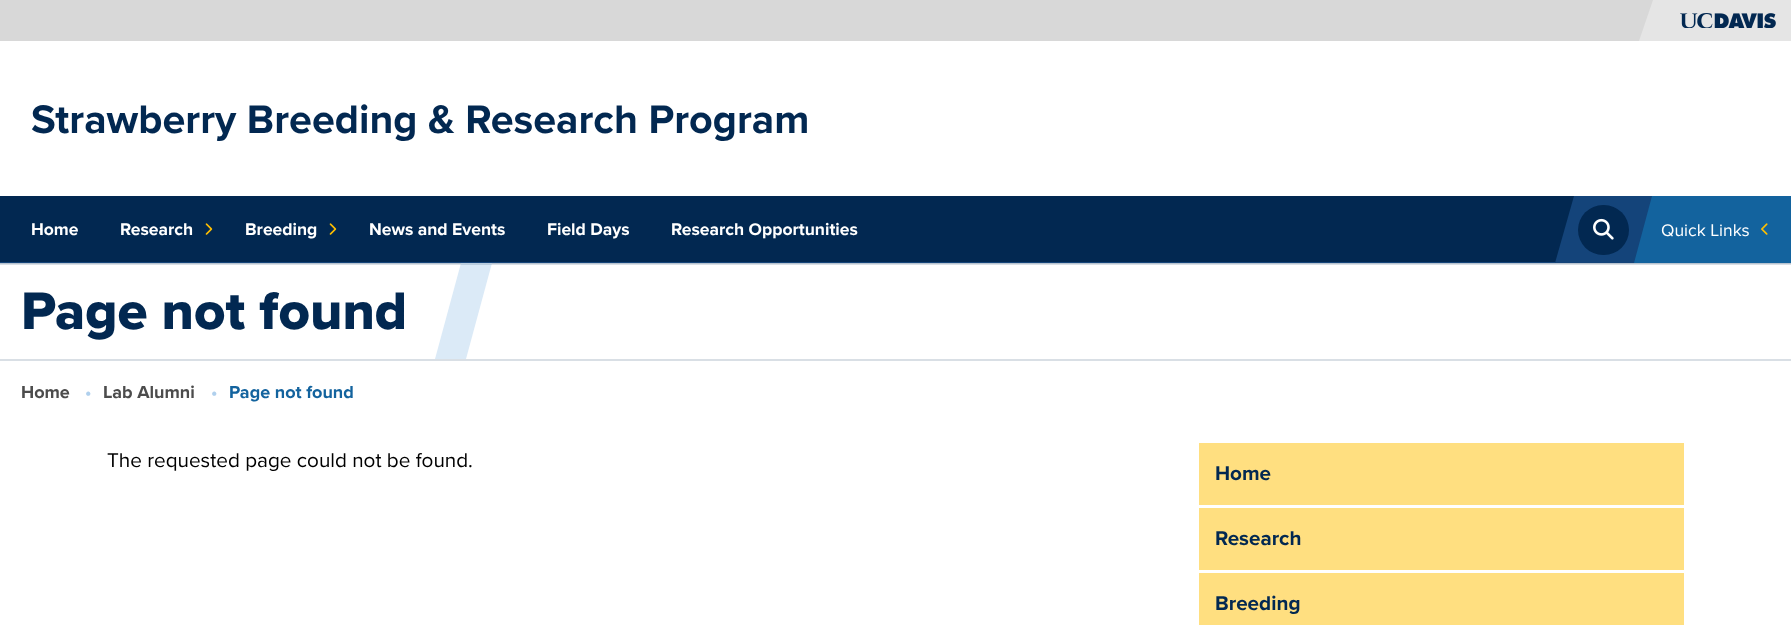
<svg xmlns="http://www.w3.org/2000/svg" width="1791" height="625">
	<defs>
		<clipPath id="clip1"><rect x="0" y="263" width="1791" height="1" /></clipPath>
		<clipPath id="clip2"><rect x="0" y="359" width="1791" height="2" /></clipPath>
	</defs>
	<rect width="100%" height="100%" fill="#FFFFFF" />
	<g clip-path="url(#clip1)">
		<rect x="0" y="1" width="1791" height="263" fill="#022851" fill-opacity="0.15" filter="blur(0.5px)" />
	</g>
	<rect x="0" y="0" width="1653" height="41" fill="#D8D8D8" />
	<rect x="1654" y="0" width="137" height="41" fill="#E5E5E5" />
	<path d="M1653 0L1639 41H1654V0Z" fill="#E5E5E5" />
	<image x="1680" y="13" width="96" height="15" href="assets/img1.png" />
	<text x="31" y="133" font-family="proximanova" font-size="41.3" font-weight="700" fill="#022851">Strawberry Breeding &amp; Research Program</text>
	<g clip-path="url(#clip2)">
		<rect x="0" y="265" width="1791" height="96" fill="#022851" fill-opacity="0.15" filter="blur(0.5px)" />
	</g>
	<path d="M461 263H492L466 359H435Z" fill="#DBEAF7" />
	<rect x="0" y="198" width="1791" height="67" fill="#022851" fill-opacity="0.15" filter="blur(0.5px)" />
	<rect x="0" y="196" width="1574" height="67" fill="#022851" />
	<rect x="0" y="262" width="1555" height="1" fill="#14447A" />
	<g font-family="proximanova" font-size="17.5" font-weight="700" fill="#FFFFFF">
		<text x="31" y="235">Home</text>
		<text x="120" y="235">Research</text>
	</g>
	<image x="205" y="223" width="8" height="12" href="assets/img2.png" />
	<text x="245" y="235" font-family="proximanova" font-size="17.5" font-weight="700" fill="#FFFFFF">Breeding</text>
	<image x="329" y="223" width="8" height="12" href="assets/img2.png" />
	<g font-family="proximanova" font-size="17.5" font-weight="700" fill="#FFFFFF">
		<text x="369" y="235">News and Events</text>
		<text x="547" y="235">Field Days</text>
		<text x="671" y="235">Research Opportunities</text>
	</g>
	<path d="M1649 196H1650V263H1630Z" fill="#13639E" />
	<rect x="1575" y="196" width="57" height="67" fill="#14447A" />
	<path d="M1574 196H1575V263H1555Z" fill="#14447A" />
	<rect x="1578" y="205" width="51" height="50" rx="25" fill="#022851" />
	<image x="1593" y="218" width="21" height="22" href="assets/img3.png" />
	<rect x="1650" y="196" width="141" height="67" fill="#13639E" />
	<path d="M1632 196H1652L1634 263H1632Z" fill="#14447A" />
	<text x="1661" y="236" font-family="proximanova" font-size="17.5" fill="#FFFFFF">Quick Links</text>
	<image x="1761" y="223" width="7" height="12" href="assets/img4.png" />
	<text x="21" y="329" font-family="Proxima Nova" font-size="54.75" font-weight="800" fill="#022851">Page not found</text>
	<text x="21" y="398" font-family="proximanova" font-size="18" font-weight="700" fill="#4C4C4C">Home</text>
	<text x="85" y="398" font-family="proximanova" font-size="18" font-weight="700" fill="#B0D0ED">•</text>
	<text x="103" y="398" font-family="proximanova" font-size="18" font-weight="700" fill="#4C4C4C">Lab Alumni</text>
	<text x="211" y="398" font-family="proximanova" font-size="18" font-weight="700" fill="#B0D0ED">•</text>
	<text x="229" y="398" font-family="proximanova" font-size="18" font-weight="700" fill="#13639E">Page not found</text>
	<text x="107" y="467" font-family="proximanova" font-size="20.7" fill="#000000">The requested page could not be found.</text>
	<rect x="1199" y="443" width="485" height="62" fill="#FFDF80" />
	<text x="1215" y="480" font-family="proximanova" font-size="20.7" font-weight="700" fill="#022851">Home</text>
	<rect x="1199" y="508" width="485" height="62" fill="#FFDF80" />
	<text x="1215" y="545" font-family="proximanova" font-size="20.7" font-weight="700" fill="#022851">Research</text>
	<rect x="1199" y="573" width="485" height="52" fill="#FFDF80" />
	<text x="1215" y="610" font-family="proximanova" font-size="20.7" font-weight="700" fill="#022851">Breeding</text>
</svg>
